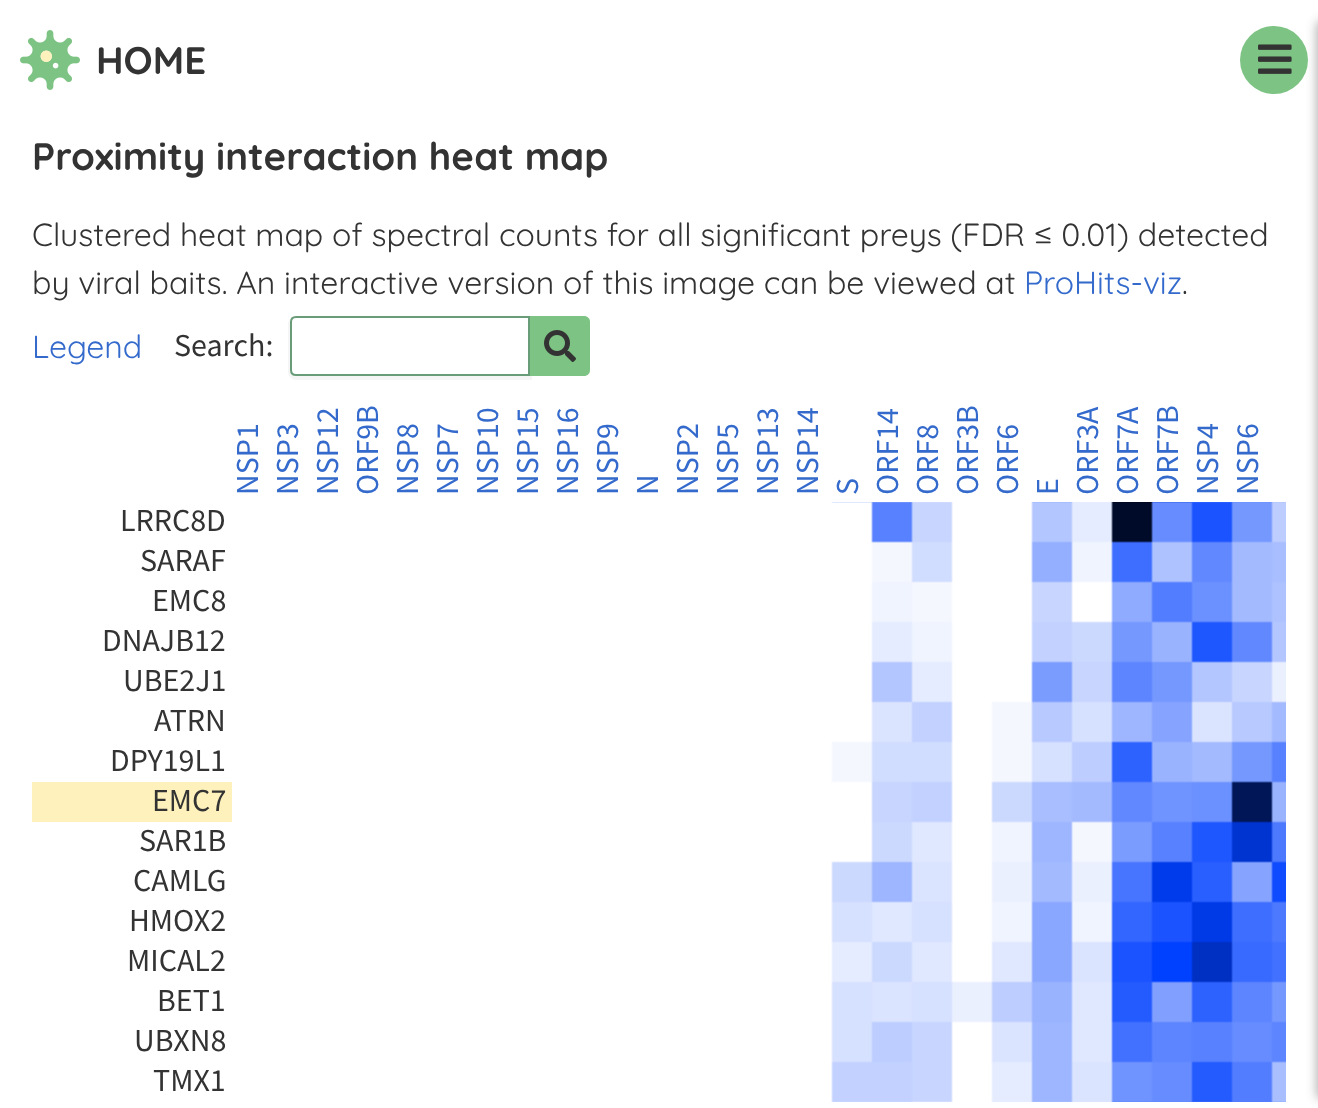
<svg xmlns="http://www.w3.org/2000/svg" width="1318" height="1108">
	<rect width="100%" height="100%" fill="#FFFFFF" />
	<image x="20" y="30" width="60" height="60" href="assets/img1.png" />
	<text x="96" y="74" font-family="Quicksand" font-size="38.4" font-weight="700" fill="#333333">HOME</text>
	<rect x="1318" y="22" width="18" height="1076" fill="#000000" fill-opacity="0.23" filter="blur(6px)" />
	<rect x="1318" y="22" width="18" height="1076" fill="#000000" fill-opacity="0.16" filter="blur(6px)" />
	<circle cx="1274" cy="60" r="34" fill="#7DC383" />
	<image x="1258" y="44" width="34" height="30" href="assets/img2.png" />
	<text x="32" y="170" font-family="Quicksand" font-size="38.4" font-weight="700" fill="#333333">Proximity interaction heat map</text>
	<g font-family="Quicksand" font-size="32" fill="#333333">
		<text x="32" y="246">Clustered heat map of spectral counts for all significant preys (FDR ≤ 0.01) detected</text>
		<text x="32" y="294">by viral baits. An interactive version of this image can be viewed at</text>
	</g>
	<text x="1024" y="294" font-family="Quicksand" font-size="32" fill="#346ACC">ProHits-viz</text>
	<text x="1182" y="294" font-family="Quicksand" font-size="32" fill="#333333">.</text>
	<text x="32" y="358" font-family="Quicksand" font-size="32" fill="#346ACC">Legend</text>
	<text x="174" y="356" font-family="Source Sans Pro" font-size="32" fill="#333333">Search:</text>
	<path d="M296 316C292 316 288 320 288 324V372C288 376 292 380 296 380H532V316H530V376H296C293 376 290 373 290 370V322C290 319 293 316 296 316Z" fill="#F5F5F5" />
	<path d="M296 317H529V375H296C293 375 291 373 291 370V322C291 319 293 317 296 317Z" fill="#FFFFFF" stroke="#699C78" stroke-width="2" />
	<path d="M530 316H584C587.5 316 590 318.5 590 322V370C590 373.5 587.5 376 584 376H530Z" fill="#7DC383" />
	<image x="544" y="330" width="32" height="32" href="assets/img3.png" />
	<g font-family="Source Sans Pro" font-size="32" fill="#346ACC">
		<text x="258" y="495" transform="rotate(-90 258 495)">NSP1</text>
		<text x="298" y="495" transform="rotate(-90 298 495)">NSP3</text>
		<text x="338" y="495" transform="rotate(-90 338 495)">NSP12</text>
		<text x="378" y="495" transform="rotate(-90 378 495)">ORF9B</text>
		<text x="418" y="495" transform="rotate(-90 418 495)">NSP8</text>
		<text x="458" y="495" transform="rotate(-90 458 495)">NSP7</text>
		<text x="498" y="495" transform="rotate(-90 498 495)">NSP10</text>
		<text x="538" y="495" transform="rotate(-90 538 495)">NSP15</text>
		<text x="578" y="495" transform="rotate(-90 578 495)">NSP16</text>
		<text x="618" y="495" transform="rotate(-90 618 495)">NSP9</text>
		<text x="658" y="495" transform="rotate(-90 658 495)">N</text>
		<text x="698" y="495" transform="rotate(-90 698 495)">NSP2</text>
		<text x="738" y="495" transform="rotate(-90 738 495)">NSP5</text>
		<text x="778" y="495" transform="rotate(-90 778 495)">NSP13</text>
		<text x="818" y="495" transform="rotate(-90 818 495)">NSP14</text>
		<text x="858" y="495" transform="rotate(-90 858 495)">S</text>
		<text x="898" y="495" transform="rotate(-90 898 495)">ORF14</text>
		<text x="938" y="495" transform="rotate(-90 938 495)">ORF8</text>
		<text x="978" y="495" transform="rotate(-90 978 495)">ORF3B</text>
		<text x="1018" y="495" transform="rotate(-90 1018 495)">ORF6</text>
		<text x="1058" y="495" transform="rotate(-90 1058 495)">E</text>
		<text x="1098" y="495" transform="rotate(-90 1098 495)">ORF3A</text>
		<text x="1138" y="495" transform="rotate(-90 1138 495)">ORF7A</text>
		<text x="1178" y="495" transform="rotate(-90 1178 495)">ORF7B</text>
		<text x="1218" y="495" transform="rotate(-90 1218 495)">NSP4</text>
		<text x="1258" y="495" transform="rotate(-90 1258 495)">NSP6</text>
	</g>
	<g font-family="Source Sans Pro" font-size="32" fill="#333333">
		<text x="120" y="531">LRRC8D</text>
		<text x="140" y="571">SARAF</text>
		<text x="152" y="611">EMC8</text>
		<text x="102" y="651">DNAJB12</text>
		<text x="123" y="691">UBE2J1</text>
		<text x="154" y="731">ATRN</text>
		<text x="110" y="771">DPY19L1</text>
	</g>
	<rect x="32" y="782" width="200" height="40" fill="#FFF1BC" />
	<g font-family="Source Sans Pro" font-size="32" fill="#333333">
		<text x="152" y="811">EMC7</text>
		<text x="139" y="851">SAR1B</text>
		<text x="133" y="891">CAMLG</text>
		<text x="129" y="931">HMOX2</text>
		<text x="127" y="971">MICAL2</text>
		<text x="157" y="1011">BET1</text>
		<text x="134" y="1051">UBXN8</text>
		<text x="153" y="1091">TMX1</text>
	</g>
	<image x="831" y="502" width="455" height="600" href="assets/img4.png" />
</svg>
